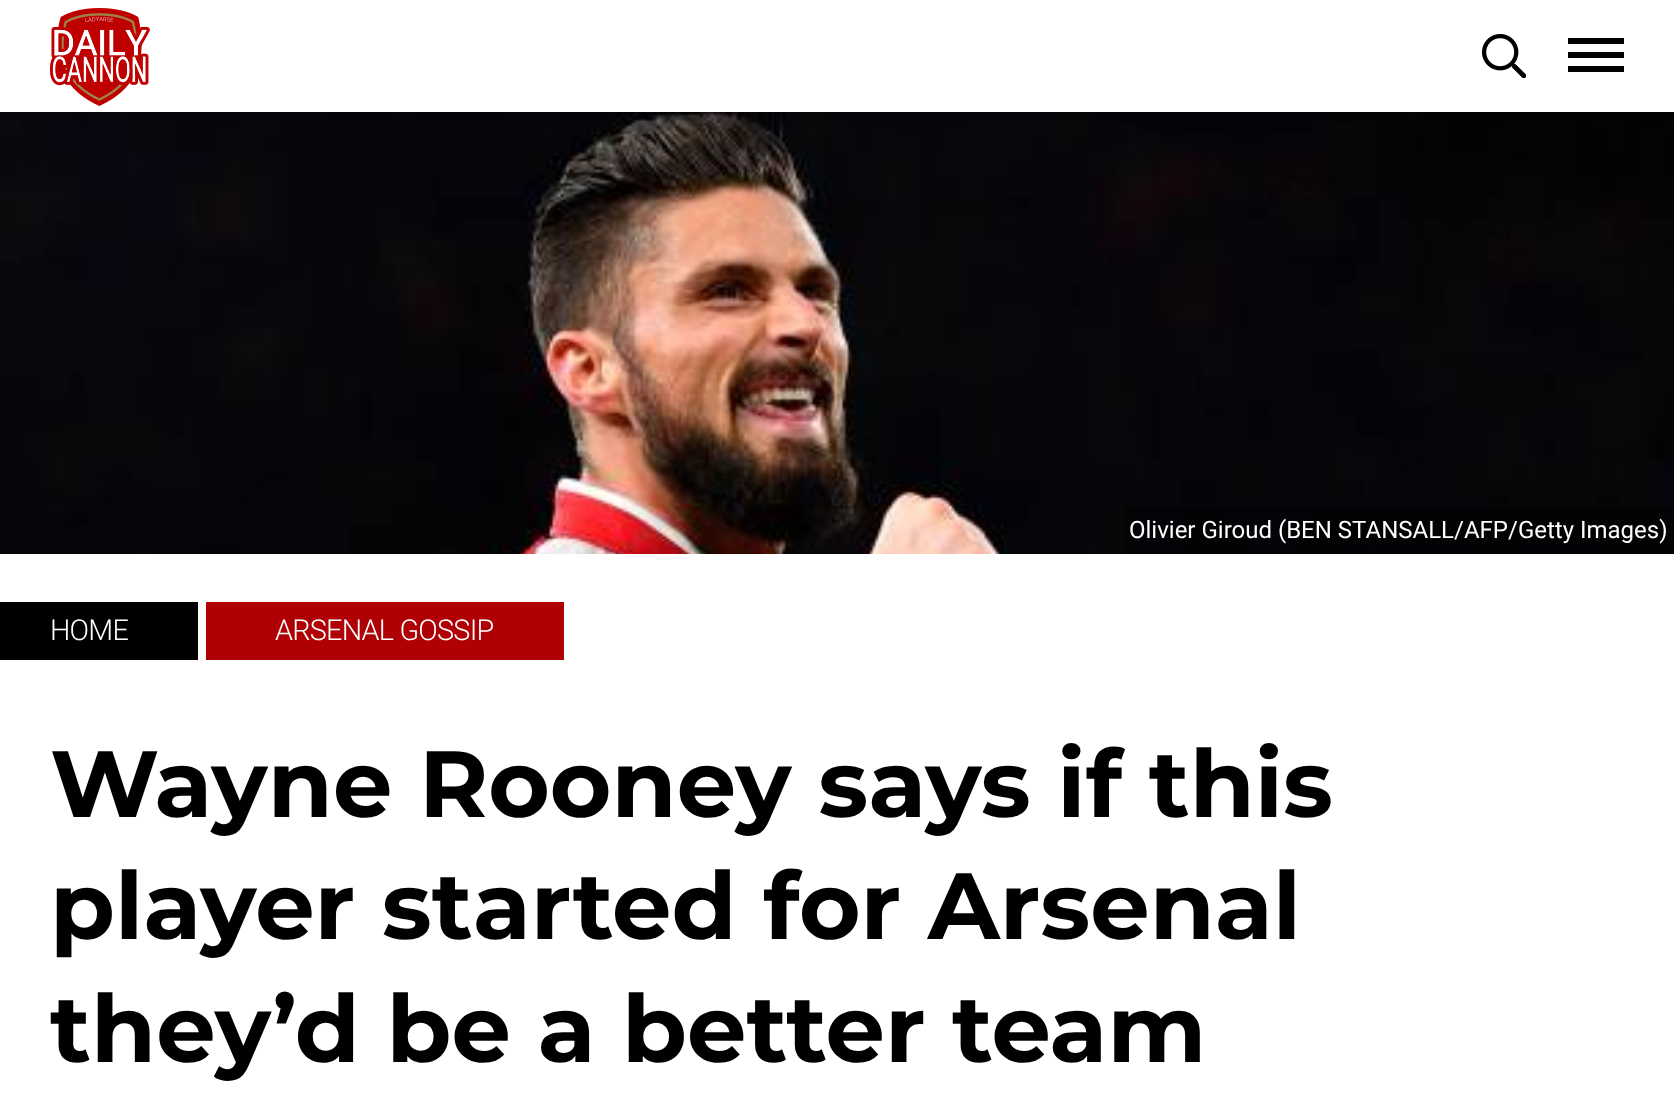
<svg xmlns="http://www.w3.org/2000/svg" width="1674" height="1106">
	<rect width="100%" height="100%" fill="#FFFFFF" />
	<image x="50" y="8" width="100" height="98" href="assets/img1.png" />
	<image x="1482" y="34" width="44" height="44" href="assets/img2.png" />
	<rect x="1568" y="38" width="56" height="6" fill="#000000" />
	<rect x="1568" y="52" width="56" height="6" fill="#000000" />
	<rect x="1568" y="66" width="56" height="6" fill="#000000" />
	<image x="0" y="112" width="1674" height="442" href="assets/img3.png" />
	<rect x="1124" y="506" width="550" height="48" fill="#000000" fill-opacity="0.4" />
	<text x="1129" y="538" font-family="Roboto" font-size="24" fill="#FFFFFF">Olivier Giroud (BEN STANSALL/AFP/Getty Images)</text>
	<rect x="0" y="602" width="198" height="58" fill="#000000" />
	<text x="50" y="640" font-family="Roboto" font-size="28.75" font-weight="300" letter-spacing="-0.75" fill="#FFFFFF">HOME</text>
	<rect x="206" y="602" width="358" height="58" fill="#AF0005" />
	<text x="275" y="640" font-family="Roboto" font-size="28.75" font-weight="300" letter-spacing="-0.75" fill="#FFFFFF">ARSENAL GOSSIP</text>
	<g font-family="Montserrat" font-size="94.1" font-weight="700" fill="#000000">
		<text x="50" y="817">Wayne Rooney says if this</text>
		<text x="50" y="939">player started for Arsenal</text>
		<text x="50" y="1062">they’d be a better team</text>
	</g>
</svg>
